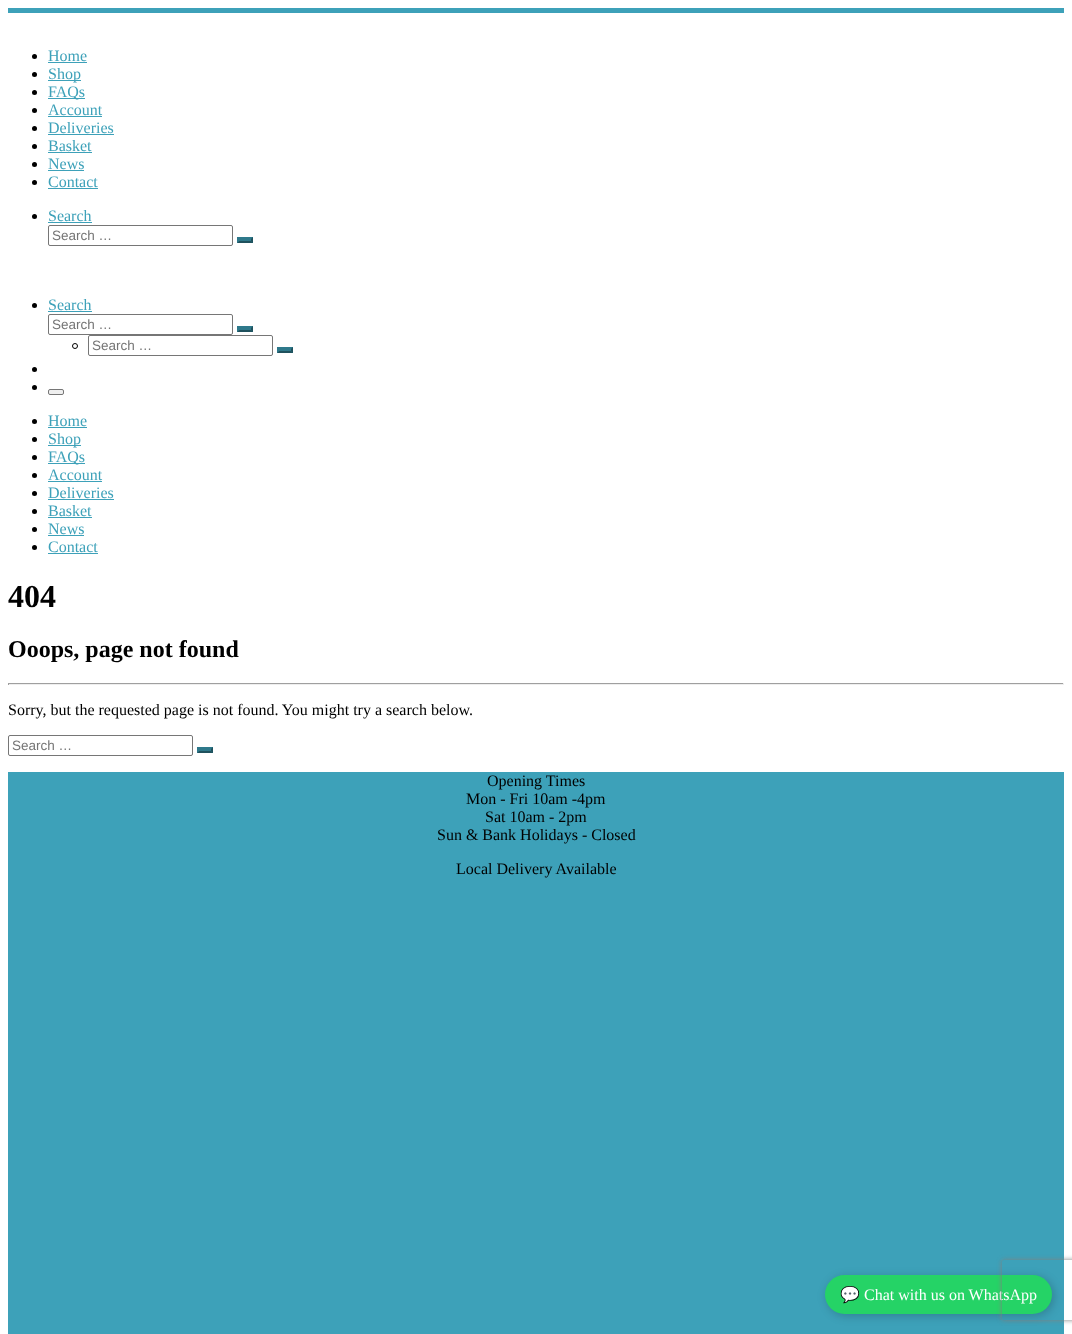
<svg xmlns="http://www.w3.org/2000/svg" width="1072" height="1334">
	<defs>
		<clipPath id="clip1"><path d="M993 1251H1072V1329H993ZM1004 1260H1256C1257 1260 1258 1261 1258 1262V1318C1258 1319 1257 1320 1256 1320H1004C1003 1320 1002 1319 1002 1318V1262C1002 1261 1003 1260 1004 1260Z" clip-rule="evenodd" /></clipPath>
	</defs>
	<rect width="100%" height="100%" fill="#FFFFFF" />
	<rect x="8" y="8" width="1056" height="5" fill="#3DA1B9" />
	<circle cx="34.5" cy="56.5" r="2.5" fill="#000000" />
	<text x="48" y="61" font-family="Liberation Serif" font-size="16" fill="#3DA1B9">Home</text>
	<rect x="48" y="62" width="39" height="1" fill="#3DA1B9" />
	<circle cx="34.5" cy="74.5" r="2.5" fill="#000000" />
	<rect x="48" y="80" width="33" height="1" fill="#3DA1B9" />
	<text x="48" y="79" font-family="Liberation Serif" font-size="16" fill="#3DA1B9">Shop</text>
	<circle cx="34.5" cy="92.5" r="2.5" fill="#000000" />
	<rect x="48" y="98" width="37" height="1" fill="#3DA1B9" />
	<text x="48" y="97" font-family="Liberation Serif" font-size="16" fill="#3DA1B9">FAQs</text>
	<circle cx="34.5" cy="110.5" r="2.5" fill="#000000" />
	<text x="48" y="115" font-family="Liberation Serif" font-size="16" fill="#3DA1B9">Account</text>
	<rect x="48" y="116" width="54" height="1" fill="#3DA1B9" />
	<circle cx="34.5" cy="128.5" r="2.5" fill="#000000" />
	<text x="48" y="133" font-family="Liberation Serif" font-size="16" fill="#3DA1B9">Deliveries</text>
	<rect x="48" y="134" width="66" height="1" fill="#3DA1B9" />
	<circle cx="34.5" cy="146.5" r="2.5" fill="#000000" />
	<text x="48" y="151" font-family="Liberation Serif" font-size="16" fill="#3DA1B9">Basket</text>
	<rect x="48" y="152" width="44" height="1" fill="#3DA1B9" />
	<circle cx="34.5" cy="164.5" r="2.5" fill="#000000" />
	<text x="48" y="169" font-family="Liberation Serif" font-size="16" fill="#3DA1B9">News</text>
	<rect x="48" y="170" width="36" height="1" fill="#3DA1B9" />
	<circle cx="34.5" cy="182.5" r="2.5" fill="#000000" />
	<text x="48" y="187" font-family="Liberation Serif" font-size="16" fill="#3DA1B9">Contact</text>
	<rect x="48" y="188" width="50" height="1" fill="#3DA1B9" />
	<circle cx="34.5" cy="216.5" r="2.5" fill="#000000" />
	<text x="48" y="221" font-family="Liberation Serif" font-size="16" fill="#3DA1B9">Search</text>
	<rect x="48" y="222" width="44" height="1" fill="#3DA1B9" />
	<rect x="48.5" y="225.5" width="184" height="20" rx="1.5" fill="none" stroke="#767676" />
	<text x="52" y="240" font-family="Liberation Sans" font-size="13.5" fill="#757575">Search …</text>
	<rect x="237" y="237" width="16" height="6" fill="#2E798B" />
	<path d="M253 237V243L251 241V239Z" fill="#1F515D" />
	<path d="M253 243H237L239 241H251Z" fill="#1F515D" />
	<path d="M237 243V237L239 239V241Z" fill="#2E798B" />
	<circle cx="34.5" cy="305.5" r="2.5" fill="#000000" />
	<text x="48" y="310" font-family="Liberation Serif" font-size="16" fill="#3DA1B9">Search</text>
	<rect x="48" y="311" width="44" height="1" fill="#3DA1B9" />
	<rect x="48.5" y="314.5" width="184" height="20" rx="1.5" fill="none" stroke="#767676" />
	<text x="52" y="329" font-family="Liberation Sans" font-size="13.5" fill="#757575">Search …</text>
	<rect x="237" y="326" width="16" height="6" fill="#2E798B" />
	<path d="M253 326V332L251 330V328Z" fill="#1F515D" />
	<path d="M253 332H237L239 330H251Z" fill="#1F515D" />
	<path d="M237 332V326L239 328V330Z" fill="#2E798B" />
	<circle cx="75" cy="346" r="2.5" fill="none" stroke="#000000" />
	<rect x="88.5" y="335.5" width="184" height="20" rx="1.5" fill="none" stroke="#767676" />
	<text x="92" y="350" font-family="Liberation Sans" font-size="13.5" fill="#757575">Search …</text>
	<rect x="277" y="347" width="16" height="6" fill="#2E798B" />
	<path d="M293 347V353L291 351V349Z" fill="#1F515D" />
	<path d="M293 353H277L279 351H291Z" fill="#1F515D" />
	<path d="M277 353V347L279 349V351Z" fill="#2E798B" />
	<circle cx="34.5" cy="369.5" r="2.5" fill="#000000" />
	<circle cx="34.5" cy="387.5" r="2.5" fill="#000000" />
	<rect x="48.5" y="389.5" width="15" height="5" rx="1.5" fill="#EFEFEF" stroke="#767676" />
	<circle cx="34.5" cy="421.5" r="2.5" fill="#000000" />
	<text x="48" y="426" font-family="Liberation Serif" font-size="16" fill="#3DA1B9">Home</text>
	<rect x="48" y="427" width="39" height="1" fill="#3DA1B9" />
	<circle cx="34.5" cy="439.5" r="2.5" fill="#000000" />
	<rect x="48" y="445" width="33" height="1" fill="#3DA1B9" />
	<text x="48" y="444" font-family="Liberation Serif" font-size="16" fill="#3DA1B9">Shop</text>
	<circle cx="34.5" cy="457.5" r="2.5" fill="#000000" />
	<rect x="48" y="463" width="37" height="1" fill="#3DA1B9" />
	<text x="48" y="462" font-family="Liberation Serif" font-size="16" fill="#3DA1B9">FAQs</text>
	<circle cx="34.5" cy="475.5" r="2.5" fill="#000000" />
	<text x="48" y="480" font-family="Liberation Serif" font-size="16" fill="#3DA1B9">Account</text>
	<rect x="48" y="481" width="54" height="1" fill="#3DA1B9" />
	<circle cx="34.5" cy="493.5" r="2.5" fill="#000000" />
	<text x="48" y="498" font-family="Liberation Serif" font-size="16" fill="#3DA1B9">Deliveries</text>
	<rect x="48" y="499" width="66" height="1" fill="#3DA1B9" />
	<circle cx="34.5" cy="511.5" r="2.5" fill="#000000" />
	<text x="48" y="516" font-family="Liberation Serif" font-size="16" fill="#3DA1B9">Basket</text>
	<rect x="48" y="517" width="44" height="1" fill="#3DA1B9" />
	<circle cx="34.5" cy="529.5" r="2.5" fill="#000000" />
	<text x="48" y="534" font-family="Liberation Serif" font-size="16" fill="#3DA1B9">News</text>
	<rect x="48" y="535" width="36" height="1" fill="#3DA1B9" />
	<circle cx="34.5" cy="547.5" r="2.5" fill="#000000" />
	<text x="48" y="552" font-family="Liberation Serif" font-size="16" fill="#3DA1B9">Contact</text>
	<rect x="48" y="553" width="50" height="1" fill="#3DA1B9" />
	<text x="8" y="607" font-family="Liberation Serif" font-size="32" font-weight="700" fill="#000000">404</text>
	<text x="8" y="657" font-family="Liberation Serif" font-size="24" font-weight="700" fill="#000000">Ooops, page not found</text>
	<rect x="8" y="683" width="1056" height="1" fill="#9F9F9F" />
	<rect x="1063" y="683" width="1" height="2" fill="#EEEEEE" />
	<rect x="8" y="684" width="1056" height="1" fill="#EEEEEE" />
	<rect x="8" y="683" width="1" height="2" fill="#9F9F9F" />
	<text x="8" y="715" font-family="Liberation Serif" font-size="16" fill="#000000">Sorry, but the requested page is not found. You might try a search below.</text>
	<rect x="8.5" y="735.5" width="184" height="20" rx="1.5" fill="none" stroke="#767676" />
	<text x="12" y="750" font-family="Liberation Sans" font-size="13.5" fill="#757575">Search …</text>
	<rect x="197" y="747" width="16" height="6" fill="#2E798B" />
	<path d="M213 747V753L211 751V749Z" fill="#1F515D" />
	<path d="M213 753H197L199 751H211Z" fill="#1F515D" />
	<path d="M197 753V747L199 749V751Z" fill="#2E798B" />
	<rect x="8" y="772" width="1056" height="562" fill="#3DA1B9" />
	<g font-family="Liberation Serif" font-size="16" fill="#000000">
		<text x="487" y="786">Opening Times</text>
		<text x="466" y="804">Mon - Fri 10am -4pm</text>
		<text x="485" y="822">Sat 10am - 2pm</text>
		<text x="437" y="840">Sun &amp; Bank Holidays - Closed</text>
		<text x="456" y="874">Local Delivery Available</text>
	</g>
	<rect x="827" y="1277" width="227" height="39" rx="19.5" fill="#000000" fill-opacity="0.2" filter="blur(5px)" />
	<rect x="825" y="1275" width="227" height="39" rx="19.5" fill="#25D366" />
	<text x="840" y="1300" font-family="Noto Color Emoji" font-size="16" fill="#FFFFFF">💬</text>
	<text x="864" y="1300" font-family="Liberation Serif" font-size="16" fill="#FFFFFF">Chat with us on WhatsApp</text>
	<g clip-path="url(#clip1)">
		<rect x="1002" y="1260" width="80" height="60" rx="2" fill="#808080" filter="blur(2.5px)" />
	</g>
</svg>
